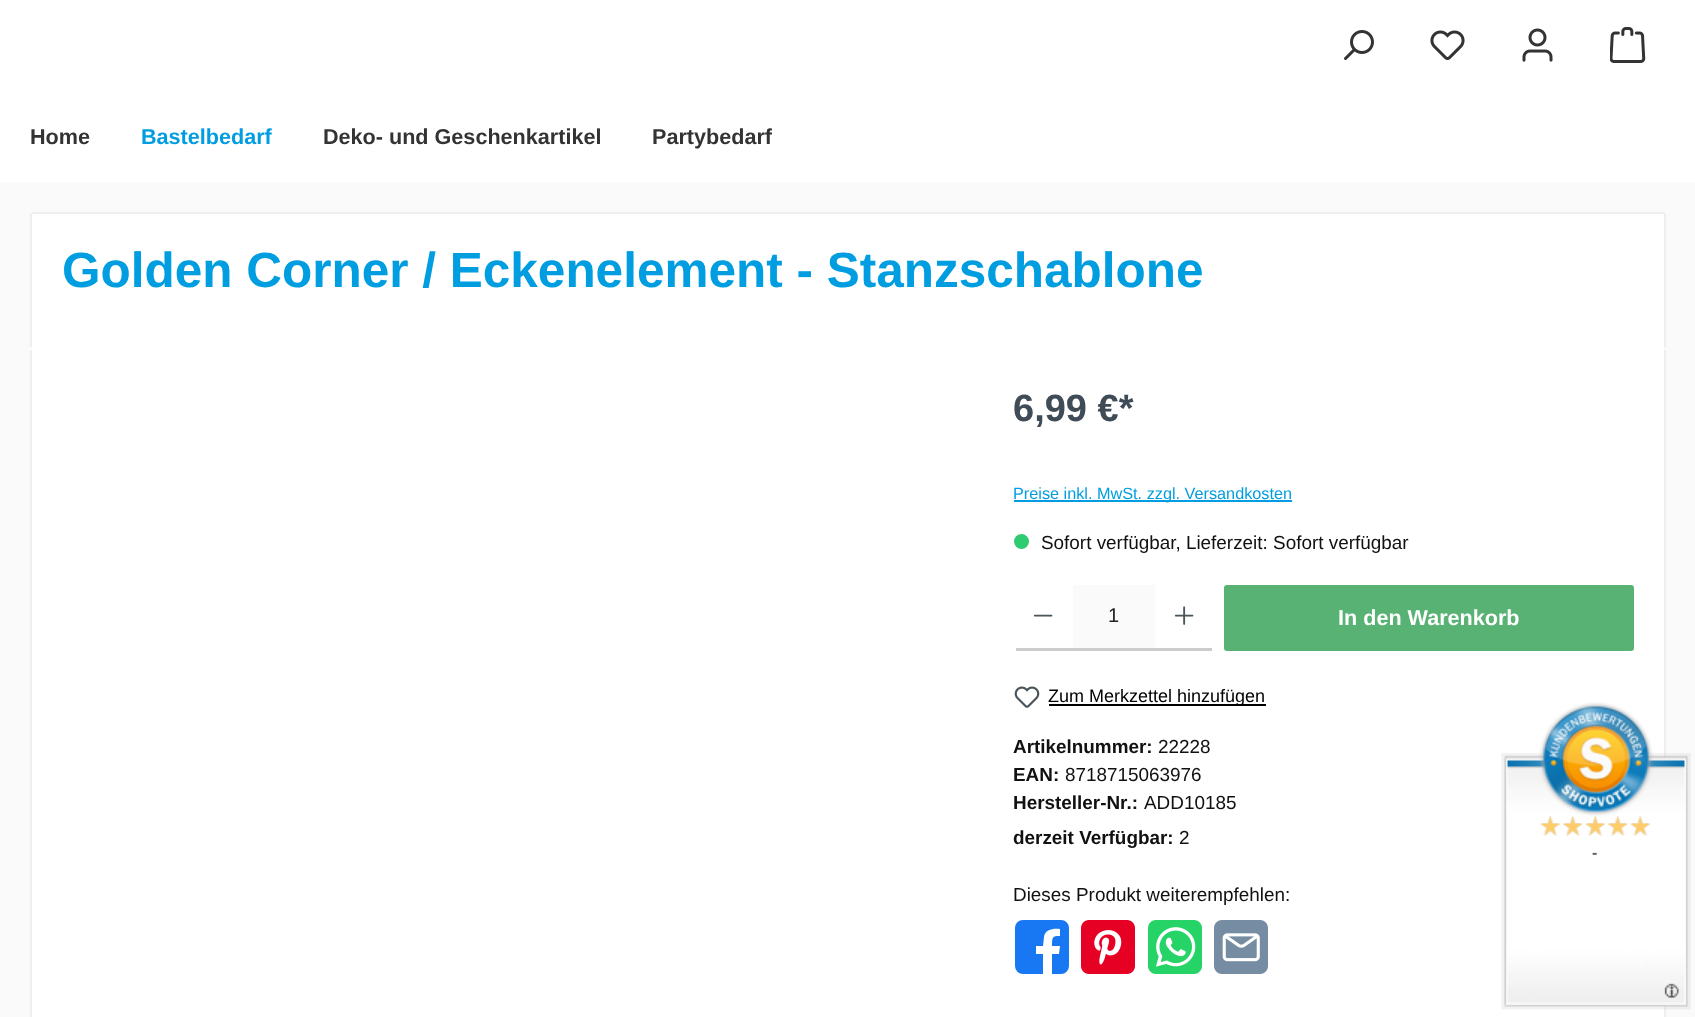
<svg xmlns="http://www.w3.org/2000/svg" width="1695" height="1017">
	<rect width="100%" height="100%" fill="#FAFAFA" />
	<rect x="0" y="0" width="1695" height="182" fill="#FFFFFF" />
	<image x="1344" y="30" width="30" height="30" href="assets/img1.png" />
	<image x="1430" y="30" width="35" height="30" href="assets/img2.png" />
	<image x="1522" y="28" width="31" height="34" href="assets/img3.png" />
	<image x="1610" y="27" width="36" height="36" href="assets/img4.png" />
	<text x="30" y="144" font-family="Liberation Sans" font-size="21.6" font-weight="700" fill="#333333">Home</text>
	<text x="141" y="144" font-family="Liberation Sans" font-size="21.6" font-weight="700" fill="#009EE0">Bastelbedarf</text>
	<g font-family="Liberation Sans" font-size="21.6" font-weight="700" fill="#333333">
		<text x="323" y="144">Deko- und Geschenkartikel</text>
		<text x="652" y="144">Partybedarf</text>
	</g>
	<rect x="30" y="212" width="1635" height="136" rx="3" fill="#FFFFFF" />
	<rect x="32" y="212" width="1632" height="2" fill="#EEEEEE" />
	<rect x="1664" y="213" width="2" height="134" fill="#EEEEEE" />
	<rect x="30" y="213" width="2" height="134" fill="#EEEEEE" />
	<text x="62" y="287" font-family="Liberation Sans" font-size="49.5" font-weight="700" fill="#009EE0">Golden Corner / Eckenelement - Stanzschablone</text>
	<rect x="30" y="348" width="1635" height="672" rx="3" fill="#FFFFFF" />
	<rect x="1664" y="350" width="2" height="667" fill="#EEEEEE" />
	<rect x="30" y="350" width="2" height="667" fill="#EEEEEE" />
	<text x="1013" y="421" font-family="Liberation Sans" font-size="38" font-weight="700" fill="#404B58">6,99 €*</text>
	<rect x="1014" y="500" width="278" height="2" fill="#009EE0" />
	<text x="1013" y="499" font-family="Liberation Sans" font-size="16.25" fill="#009EE0">Preise inkl. MwSt. zzgl. Versandkosten</text>
	<circle cx="1021.5" cy="541.5" r="7.5" fill="#2ECC71" />
	<text x="1041" y="549" font-family="Liberation Sans" font-size="18.9" fill="#111111">Sofort verfügbar, Lieferzeit: Sofort verfügbar</text>
	<rect x="1071" y="648" width="86" height="3" fill="#CCCCCC" />
	<path d="M1017 585H1073V651H1017C1015.5 651 1014 649.5 1014 648V588C1014 586.5 1015.5 585 1017 585Z" fill="#FFFFFF" />
	<rect x="1016" y="648" width="57" height="3" fill="#CCCCCC" />
	<image x="1033" y="614" width="20" height="3" href="assets/img5.png" />
	<rect x="1073" y="585" width="82" height="63" fill="#FAFAFA" />
	<text x="1108" y="622" font-family="Liberation Sans" font-size="20" fill="#222222">1</text>
	<path d="M1155 585H1211C1212.5 585 1214 586.5 1214 588V648C1214 649.5 1212.5 651 1211 651H1155Z" fill="#FFFFFF" />
	<rect x="1155" y="648" width="57" height="3" fill="#CCCCCC" />
	<image x="1174" y="606" width="20" height="19" href="assets/img6.png" />
	<rect x="1225" y="586" width="408" height="64" rx="2" fill="#58B274" stroke="#58B274" stroke-width="2" />
	<text x="1338" y="625" font-family="Liberation Sans" font-size="21.6" font-weight="700" fill="#FFFFFF">In den Warenkorb</text>
	<image x="1014" y="686" width="26" height="22" href="assets/img7.png" />
	<rect x="1049" y="704" width="217" height="2" fill="#000000" />
	<text x="1048" y="702" font-family="Liberation Sans" font-size="18" fill="#000000">Zum Merkzettel hinzufügen</text>
	<text x="1013" y="753" font-family="Liberation Sans" font-size="18.9" font-weight="700" fill="#111111">Artikelnummer:</text>
	<text x="1158" y="753" font-family="Liberation Sans" font-size="18.9" fill="#111111">22228</text>
	<text x="1013" y="781" font-family="Liberation Sans" font-size="18.9" font-weight="700" fill="#111111">EAN:</text>
	<text x="1065" y="781" font-family="Liberation Sans" font-size="18.9" fill="#111111">8718715063976</text>
	<text x="1013" y="809" font-family="Liberation Sans" font-size="18.9" font-weight="700" fill="#111111">Hersteller-Nr.:</text>
	<text x="1144" y="809" font-family="Liberation Sans" font-size="18.9" fill="#111111">ADD10185</text>
	<text x="1013" y="844" font-family="Liberation Sans" font-size="18.9" font-weight="700" fill="#111111">derzeit Verfügbar:</text>
	<g font-family="Liberation Sans" font-size="18.9" fill="#111111">
		<text x="1179" y="844">2</text>
		<text x="1013" y="901">Dieses Produkt weiterempfehlen:</text>
	</g>
	<rect x="1015" y="920" width="54" height="54" rx="8" fill="#1877F2" />
	<path d="M1059 954L1060 946H1052C1052 937 1052 936 1060 936V929C1054 928 1045 929 1044 937L1043 946H1036V954H1043V974H1052V954Z" fill="#FFFFFF" />
	<image x="1081" y="920" width="54" height="54" href="assets/img8.png" />
	<image x="1148" y="920" width="54" height="54" href="assets/img9.png" />
	<image x="1214" y="920" width="54" height="54" href="assets/img10.png" />
	<image x="1501" y="702" width="190" height="308" href="assets/img11.png" />
	<image x="1540" y="816" width="111" height="20" href="assets/img12.png" />
	<text x="1592" y="858" font-family="Liberation Sans" font-size="16" font-weight="700" fill="#606060">-</text>
</svg>
